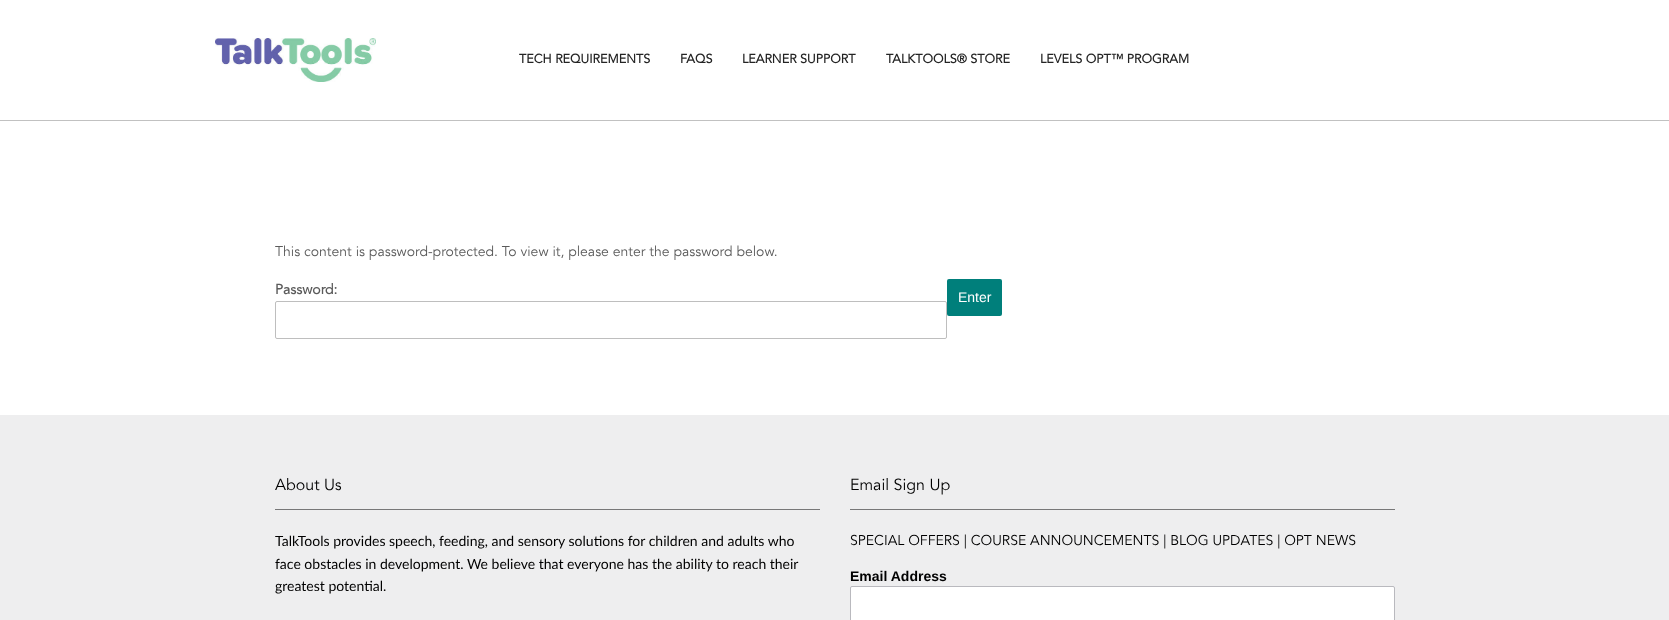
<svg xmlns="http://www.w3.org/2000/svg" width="1669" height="620">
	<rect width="100%" height="100%" fill="#FFFFFF" />
	<rect x="0" y="120" width="1669" height="1" fill="#C1C1C1" />
	<image x="215" y="38" width="161" height="44" href="assets/img1.png" />
	<g font-family="Avenir" font-size="12.6" font-weight="700" fill="#242424">
		<text x="519" y="63">TECH REQUIREMENTS</text>
		<text x="680" y="63">FAQS</text>
		<text x="742" y="63">LEARNER SUPPORT</text>
		<text x="886" y="63">TALKTOOLS® STORE</text>
		<text x="1040" y="63">LEVELS OPT™ PROGRAM</text>
	</g>
	<text x="275" y="256" font-family="Avenir" font-size="14" fill="#5B5B5B">This content is password-protected. To view it, please enter the password below.</text>
	<text x="275" y="294" font-family="Avenir" font-size="14" font-weight="700" fill="#5B5B5B">Password:</text>
	<rect x="275.5" y="301.5" width="671" height="37" rx="1.5" fill="none" stroke="#BEBEBE" />
	<rect x="947" y="279" width="55" height="37" rx="2" fill="#007F7B" />
	<text x="958" y="302" font-family="Liberation Sans" font-size="14" fill="#FFFFFF">Enter</text>
	<rect x="0" y="415" width="1669" height="205" fill="#EEEEEF" />
	<text x="275" y="490" font-family="Avenir" font-size="16" fill="#000000">About Us</text>
	<rect x="275" y="509" width="545" height="1" fill="#777778" />
	<g font-family="Lato" font-size="14" fill="#000000">
		<text x="275" y="546">TalkTools provides speech, feeding, and sensory solutions for children and adults who</text>
		<text x="275" y="569">face obstacles in development. We believe that everyone has the ability to reach their</text>
		<text x="275" y="591">greatest potential.</text>
	</g>
	<text x="850" y="490" font-family="Avenir" font-size="16" fill="#000000">Email Sign Up</text>
	<rect x="850" y="509" width="545" height="1" fill="#777778" />
	<text x="850" y="545" font-family="Avenir" font-size="14" fill="#000000">SPECIAL OFFERS | COURSE ANNOUNCEMENTS | BLOG UPDATES | OPT NEWS</text>
	<text x="850" y="581" font-family="Liberation Sans" font-size="14" font-weight="700" fill="#000000">Email Address</text>
	<rect x="850.5" y="586.5" width="544" height="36" rx="1.5" fill="#FFFFFF" stroke="#B9B9BE" />
</svg>
